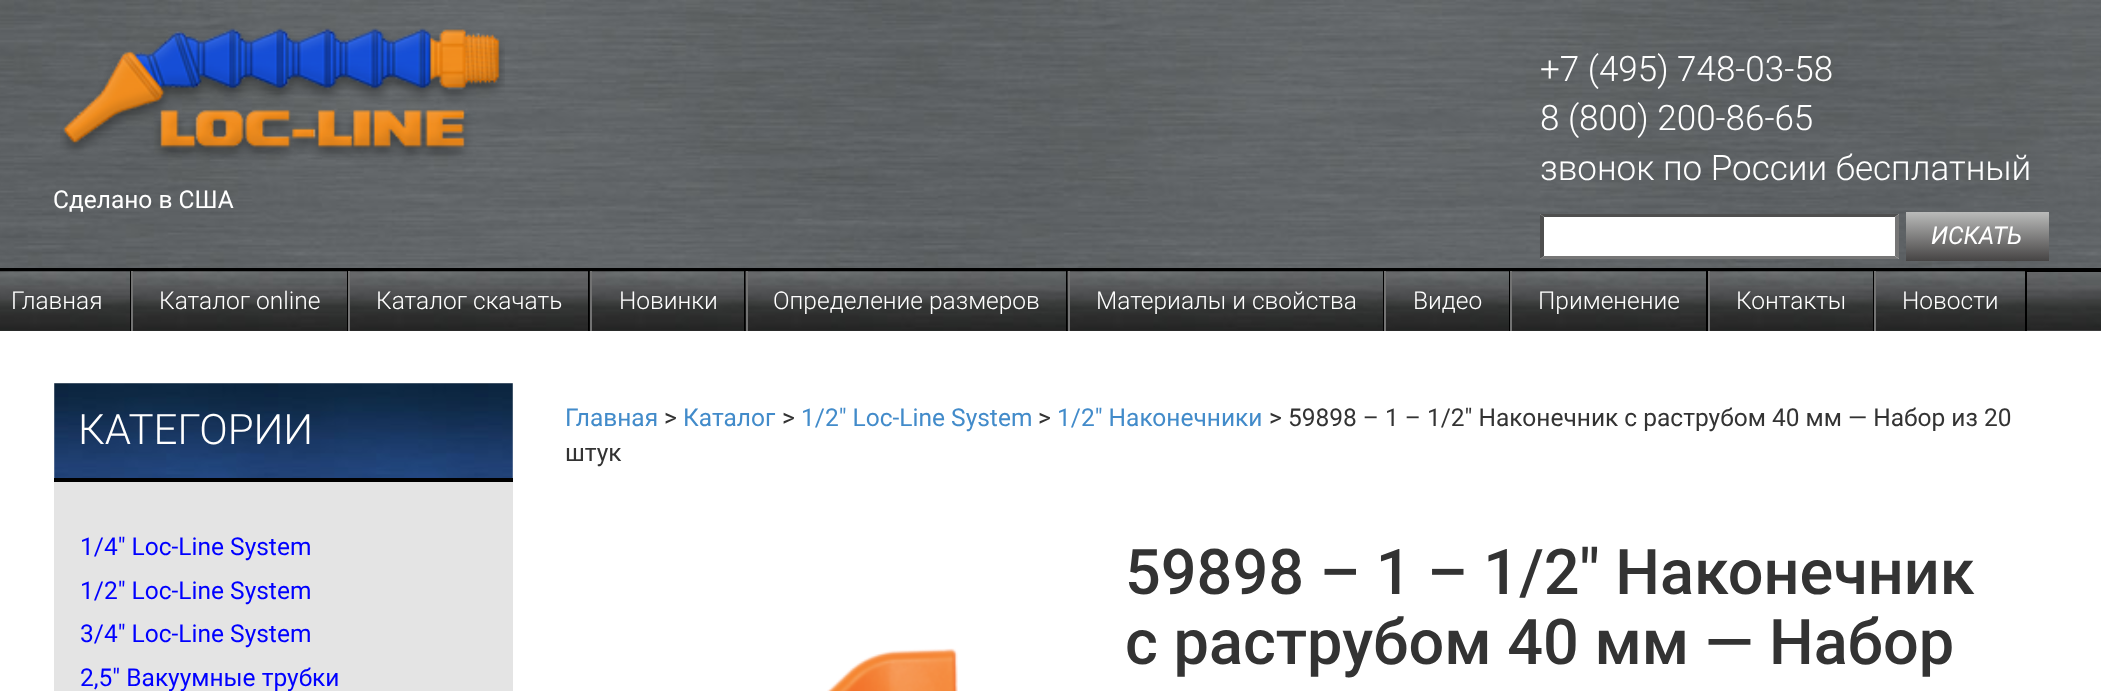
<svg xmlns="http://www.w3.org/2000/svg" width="2101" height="691">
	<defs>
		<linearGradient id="g1" gradientUnits="userSpaceOnUse" x1="1978" y1="212" x2="1978" y2="261"><stop offset="0" stop-color="#BABBBA" /><stop offset="1" stop-color="#464444" /></linearGradient>
	</defs>
	<rect width="100%" height="100%" fill="#FFFFFF" />
	<image x="0" y="0" width="2101" height="331" href="assets/img1.png" />
	<image x="60" y="28" width="445" height="132" href="assets/img2.png" />
	<text x="53" y="208" font-family="Roboto" font-size="24.5" fill="#FFFFFF">Сделано в США</text>
	<g font-family="Roboto" font-size="35" font-weight="300" fill="#FFFFFF">
		<text x="1540" y="81">+7 (495) 748-03-58</text>
		<text x="1540" y="130">8 (800) 200-86-65</text>
		<text x="1540" y="180">звонок по России бесплатный</text>
	</g>
	<rect x="1540" y="214" width="359" height="45" fill="#FFFFFF" />
	<path d="M1540 214H1899L1895 217H1544Z" fill="#4F4F4F" />
	<path d="M1899 214V259L1895 256V217Z" fill="#767676" />
	<path d="M1899 259H1540L1544 256H1895Z" fill="#767676" />
	<path d="M1540 259V214L1544 217V256Z" fill="#4F4F4F" />
	<rect x="1906" y="212" width="143" height="49" fill="url(#g1)" />
	<text x="1931" y="244" font-family="Roboto" font-size="24.5" font-style="italic" fill="#FFFFFF">ИСКАТЬ</text>
	<image x="0" y="272" width="2101" height="59" href="assets/img3.png" />
	<rect x="0" y="268" width="2101" height="4" fill="#000000" />
	<image x="0" y="271" width="130" height="60" href="assets/img4.png" />
	<rect x="130" y="271" width="1" height="60" fill="#000000" />
	<text x="11" y="309" font-family="Roboto" font-size="24.5" font-weight="300" fill="#FFFFFF">Главная</text>
	<image x="133" y="271" width="214" height="60" href="assets/img5.png" />
	<rect x="347" y="271" width="1" height="60" fill="#000000" />
	<rect x="131" y="271" width="2" height="60" fill="#737373" />
	<text x="159" y="309" font-family="Roboto" font-size="24.5" font-weight="300" fill="#FFFFFF">Каталог online</text>
	<image x="350" y="271" width="238" height="60" href="assets/img6.png" />
	<rect x="588" y="271" width="2" height="60" fill="#000000" />
	<rect x="348" y="271" width="2" height="60" fill="#737373" />
	<text x="376" y="309" font-family="Roboto" font-size="24.5" font-weight="300" fill="#FFFFFF">Каталог скачать</text>
	<image x="589" y="271" width="155" height="60" href="assets/img7.png" />
	<rect x="744" y="271" width="2" height="60" fill="#000000" />
	<rect x="590" y="271" width="2" height="60" fill="#737373" />
	<text x="619" y="309" font-family="Roboto" font-size="24.5" font-weight="300" fill="#FFFFFF">Новинки</text>
	<image x="745" y="271" width="321" height="60" href="assets/img8.png" />
	<rect x="1066" y="271" width="2" height="60" fill="#000000" />
	<rect x="746" y="271" width="2" height="60" fill="#737373" />
	<text x="773" y="309" font-family="Roboto" font-size="24.5" font-weight="300" fill="#FFFFFF">Определение размеров</text>
	<image x="1067" y="271" width="316" height="60" href="assets/img9.png" />
	<rect x="1383" y="271" width="1" height="60" fill="#000000" />
	<rect x="1068" y="271" width="2" height="60" fill="#737373" />
	<text x="1096" y="309" font-family="Roboto" font-size="24.5" font-weight="300" fill="#FFFFFF">Материалы и свойства</text>
	<image x="1386" y="271" width="123" height="60" href="assets/img10.png" />
	<rect x="1509" y="271" width="1" height="60" fill="#000000" />
	<rect x="1384" y="271" width="2" height="60" fill="#737373" />
	<text x="1413" y="309" font-family="Roboto" font-size="24.5" font-weight="300" fill="#FFFFFF">Видео</text>
	<image x="1512" y="271" width="194" height="60" href="assets/img11.png" />
	<rect x="1706" y="271" width="2" height="60" fill="#000000" />
	<rect x="1510" y="271" width="2" height="60" fill="#737373" />
	<text x="1538" y="309" font-family="Roboto" font-size="24.5" font-weight="300" fill="#FFFFFF">Применение</text>
	<image x="1710" y="271" width="163" height="60" href="assets/img12.png" />
	<rect x="1873" y="271" width="1" height="60" fill="#000000" />
	<rect x="1708" y="271" width="2" height="60" fill="#737373" />
	<text x="1736" y="309" font-family="Roboto" font-size="24.5" font-weight="300" fill="#FFFFFF">Контакты</text>
	<image x="1876" y="271" width="149" height="60" href="assets/img13.png" />
	<rect x="2025" y="271" width="2" height="60" fill="#000000" />
	<rect x="1874" y="271" width="2" height="60" fill="#737373" />
	<text x="1902" y="309" font-family="Roboto" font-size="24.5" font-weight="300" fill="#FFFFFF">Новости</text>
	<rect x="54" y="383" width="459" height="308" fill="#E4E4E4" />
	<image x="54" y="383" width="459" height="95" href="assets/img14.png" />
	<rect x="54" y="478" width="459" height="4" fill="#000000" />
	<text x="78" y="444" font-family="Roboto" font-size="42" font-weight="300" fill="#FFFFFF">КАТЕГОРИИ</text>
	<g font-family="Roboto" font-size="24.5" fill="#0000FF">
		<text x="80" y="555">1/4″ Loc-Line System</text>
		<text x="80" y="599">1/2″ Loc-Line System</text>
		<text x="80" y="642">3/4″ Loc-Line System</text>
		<text x="80" y="686">2,5″ Вакуумные трубки</text>
	</g>
	<text x="565" y="426" font-family="Roboto" font-size="24.5" fill="#428BCA">Главная</text>
	<text x="664" y="426" font-family="Roboto" font-size="24.5" fill="#333333">&gt;</text>
	<text x="683" y="426" font-family="Roboto" font-size="24.5" fill="#428BCA">Каталог</text>
	<text x="782" y="426" font-family="Roboto" font-size="24.5" fill="#333333">&gt;</text>
	<text x="801" y="426" font-family="Roboto" font-size="24.5" fill="#428BCA">1/2" Loc-Line System</text>
	<text x="1038" y="426" font-family="Roboto" font-size="24.5" fill="#333333">&gt;</text>
	<text x="1057" y="426" font-family="Roboto" font-size="24.5" fill="#428BCA">1/2" Наконечники</text>
	<g font-family="Roboto" font-size="24.5" fill="#333333">
		<text x="1269" y="426">&gt; 59898 – 1 – 1/2″ Наконечник с раструбом 40 мм — Набор из 20</text>
		<text x="565" y="461">штук</text>
	</g>
	<image x="827" y="648" width="131" height="43" href="assets/img15.png" />
	<g font-family="Roboto" font-size="63" font-weight="500" fill="#333333">
		<text x="1125" y="594">59898 – 1 – 1/2″ Наконечник</text>
		<text x="1125" y="664">с раструбом 40 мм — Набор</text>
	</g>
</svg>
